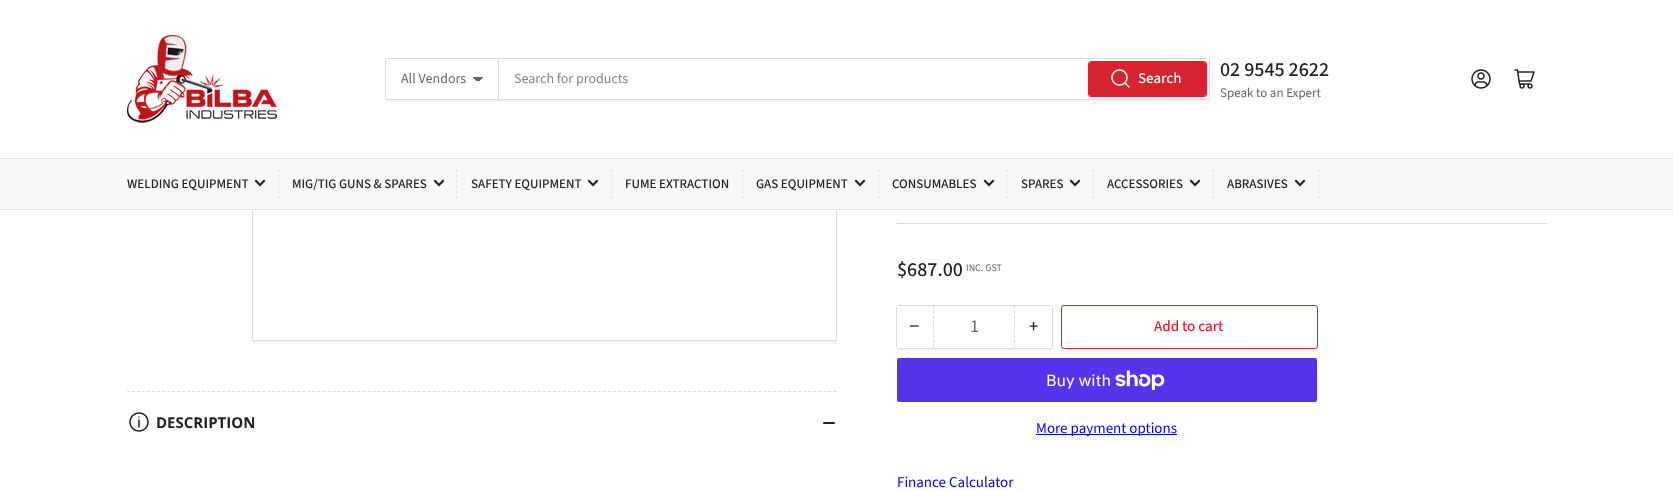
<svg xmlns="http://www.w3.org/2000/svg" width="1673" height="490">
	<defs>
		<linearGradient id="g1" gradientUnits="userSpaceOnUse" x1="478" y1="77" x2="483" y2="82"><stop offset="0.5" stop-color="#666666" /><stop offset="0.5" stop-color="#FFFFFF" /></linearGradient>
		<linearGradient id="g2" gradientUnits="userSpaceOnUse" x1="473" y1="82" x2="478" y2="77"><stop offset="0.5" stop-color="#FFFFFF" /><stop offset="0.5" stop-color="#666666" /></linearGradient>
	</defs>
	<rect width="100%" height="100%" fill="#FFFFFF" />
	<path d="M252 339V342C252 343 253 344 254 344H835C836 344 837 343 837 342V339C837 340 836 341 835 341H254C253 341 252 340 252 339Z" fill="#F4F4F4" />
	<rect x="252.5" y="-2.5" width="584" height="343" rx="1.5" fill="none" stroke="#DADADA" />
	<rect x="252" y="0" width="585" height="158" fill="#FFFFFF" />
	<image x="127" y="35" width="150" height="88" href="assets/img1.png" />
	<rect x="385.5" y="58.5" width="113" height="41" rx="1.5" fill="none" stroke="#DADADA" />
	<path d="M385 98V100C385 101 386 102 387 102H499V100H387C386 100 385 99 385 98Z" fill="#DADADA" fill-opacity="0.3" />
	<path d="M387 58H499V100H387C386 100 385 99 385 98V60C385 59 386 58 387 58Z" fill="#FFFFFF" />
	<rect x="478" y="77" width="5" height="4" fill="url(#g1)" />
	<rect x="473" y="77" width="5" height="4" fill="url(#g2)" />
	<path d="M387 58.5H498.5V99.5H387C386 99.5 385.5 99 385.5 98V60C385.5 59 386 58.5 387 58.5Z" fill="none" stroke="#DADADA" />
	<text x="401" y="83" font-family="Source Sans Pro" font-size="14" fill="#666666">All Vendors</text>
	<path d="M499 100V102H1208C1210 102 1210 100 1210 98C1210 99 1209 100 1208 100Z" fill="#F4F4F4" />
	<rect x="499" y="58" width="710" height="1" fill="#DADADA" />
	<rect x="1209" y="59" width="1" height="40" fill="#DADADA" />
	<rect x="499" y="99" width="710" height="1" fill="#DADADA" />
	<text x="514" y="83" font-family="Source Sans Pro" font-size="14" fill="#858585">Search for products</text>
	<rect x="1088.5" y="61.5" width="118" height="35" rx="2.5" fill="none" stroke="#D8232F" />
	<rect x="1089" y="62" width="117" height="34" rx="2" fill="#D8232F" />
	<image x="1111" y="69" width="19" height="19" href="assets/img2.png" />
	<text x="1138" y="83" font-family="Source Sans Pro" font-size="15" font-weight="500" fill="#FFFFFF">Search</text>
	<text x="1220" y="76" font-family="Source Sans Pro" font-size="20" font-weight="500" fill="#222222">02 9545 2622</text>
	<text x="1220" y="97" font-family="Source Sans Pro" font-size="13" fill="#666666">Speak to an Expert</text>
	<image x="1471" y="69" width="20" height="20" href="assets/img3.png" />
	<image x="1514" y="69" width="21" height="20" href="assets/img4.png" />
	<rect x="0" y="159" width="1673" height="50" fill="#F8F8F8" />
	<rect x="0" y="158" width="1673" height="1" fill="#E3E3E3" />
	<rect x="0" y="209" width="1673" height="1" fill="#E3E3E3" />
	<text x="127" y="188" font-family="Source Sans Pro" font-size="13" font-weight="500" fill="#222222">WELDING EQUIPMENT</text>
	<path d="M264 181L260 185L256 181" fill="none" stroke="#222222" stroke-width="2" stroke-linecap="square" />
	<path d="M278.5 169V199" fill="none" stroke="#E3E3E3" stroke-dasharray="3 2.4" />
	<text x="292" y="188" font-family="Source Sans Pro" font-size="13" font-weight="500" fill="#222222">MIG/TIG GUNS &amp; SPARES</text>
	<path d="M443 181L439 185L435 181" fill="none" stroke="#222222" stroke-width="2" stroke-linecap="square" />
	<path d="M456.5 169V199" fill="none" stroke="#E3E3E3" stroke-dasharray="3 2.4" />
	<text x="471" y="188" font-family="Source Sans Pro" font-size="13" font-weight="500" fill="#222222">SAFETY EQUIPMENT</text>
	<path d="M597 181L593 185L589 181" fill="none" stroke="#222222" stroke-width="2" stroke-linecap="square" />
	<path d="M611.5 169V199" fill="none" stroke="#E3E3E3" stroke-dasharray="3 2.4" />
	<text x="625" y="188" font-family="Source Sans Pro" font-size="13" font-weight="500" fill="#222222">FUME EXTRACTION</text>
	<path d="M742.5 169V199" fill="none" stroke="#E3E3E3" stroke-dasharray="3 2.4" />
	<text x="756" y="188" font-family="Source Sans Pro" font-size="13" font-weight="500" fill="#222222">GAS EQUIPMENT</text>
	<path d="M864 181L860 185L856 181" fill="none" stroke="#222222" stroke-width="2" stroke-linecap="square" />
	<path d="M878.5 169V199" fill="none" stroke="#E3E3E3" stroke-dasharray="3 2.4" />
	<text x="892" y="188" font-family="Source Sans Pro" font-size="13" font-weight="500" fill="#222222">CONSUMABLES</text>
	<path d="M993 181L989 185L985 181" fill="none" stroke="#222222" stroke-width="2" stroke-linecap="square" />
	<path d="M1006.5 169V199" fill="none" stroke="#E3E3E3" stroke-dasharray="3 2.4" />
	<text x="1021" y="188" font-family="Source Sans Pro" font-size="13" font-weight="500" fill="#222222">SPARES</text>
	<path d="M1079 181L1075 185L1071 181" fill="none" stroke="#222222" stroke-width="2" stroke-linecap="square" />
	<path d="M1093.5 169V199" fill="none" stroke="#E3E3E3" stroke-dasharray="3 2.4" />
	<text x="1107" y="188" font-family="Source Sans Pro" font-size="13" font-weight="500" fill="#222222">ACCESSORIES</text>
	<path d="M1199 181L1195 185L1191 181" fill="none" stroke="#222222" stroke-width="2" stroke-linecap="square" />
	<path d="M1213.5 169V199" fill="none" stroke="#E3E3E3" stroke-dasharray="3 2.4" />
	<text x="1227" y="188" font-family="Source Sans Pro" font-size="13" font-weight="500" fill="#222222">ABRASIVES</text>
	<path d="M1304 181L1300 185L1296 181" fill="none" stroke="#222222" stroke-width="2" stroke-linecap="square" />
	<path d="M1318.5 169V199" fill="none" stroke="#E3E3E3" stroke-dasharray="3 2.4" />
	<path d="M127 391.5H837" fill="none" stroke="#DADADA" stroke-dasharray="3 2.01" />
	<image x="129" y="412" width="20" height="20" href="assets/img5.png" />
	<text x="156" y="428" font-family="Open Sans" font-size="15" font-weight="700" fill="#222222">DESCRIPTION</text>
	<rect x="823" y="422" width="8" height="2" rx="1" fill="#222222" />
	<rect x="828" y="422" width="7" height="2" rx="1" fill="#222222" />
	<rect x="897" y="223" width="650" height="1" fill="#DADADA" />
	<text x="897" y="276" font-family="Source Sans Pro" font-size="20" font-weight="500" fill="#222222">$687.00</text>
	<text x="966" y="271" font-family="Source Sans Pro" font-size="10" fill="#666666">INC. GST</text>
	<path d="M897 346V349C897 350 898 351 899 351H1050C1051 351 1052 350 1052 349V346C1052 347 1051 348 1050 348H899C898 348 897 347 897 346Z" fill="#F4F4F4" />
	<rect x="896.5" y="305.5" width="156" height="43" rx="2.5" fill="none" stroke="#DADADA" />
	<rect x="897" y="306" width="2" height="42" fill="#FFFFFF" />
	<text x="909" y="332" font-family="Liberation Sans" font-size="18" fill="#222222">−</text>
	<path d="M1014.5 306V348" fill="none" stroke="#DADADA" stroke-dasharray="3 1.88" />
	<path d="M933.5 306V348" fill="none" stroke="#DADADA" stroke-dasharray="3 1.88" />
	<text x="970" y="332" font-family="Source Sans Pro" font-size="18" fill="#666666">1</text>
	<rect x="1050" y="306" width="2" height="42" fill="#FFFFFF" />
	<text x="1029" y="332" font-family="Source Sans Pro" font-size="18" font-weight="500" fill="#222222">+</text>
	<rect x="1061.5" y="305.5" width="256" height="43" rx="2.5" fill="none" stroke="#D8232F" />
	<text x="1154" y="331" font-family="Source Sans Pro" font-size="15" font-weight="500" fill="#D8232F">Add to cart</text>
	<rect x="897" y="358" width="420" height="44" rx="2" fill="#5433EB" />
	<text x="1046" y="386" font-family="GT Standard" font-size="16" fill="#FFFFFF">Buy with</text>
	<image x="1115" y="370" width="50" height="20" href="assets/img6.png" />
	<rect x="1036" y="434" width="141" height="1" fill="#0000EE" />
	<g font-family="Source Sans Pro" font-size="15" fill="#0000EE">
		<text x="1036" y="433">More payment options</text>
		<text x="897" y="487">Finance Calculator</text>
	</g>
</svg>
